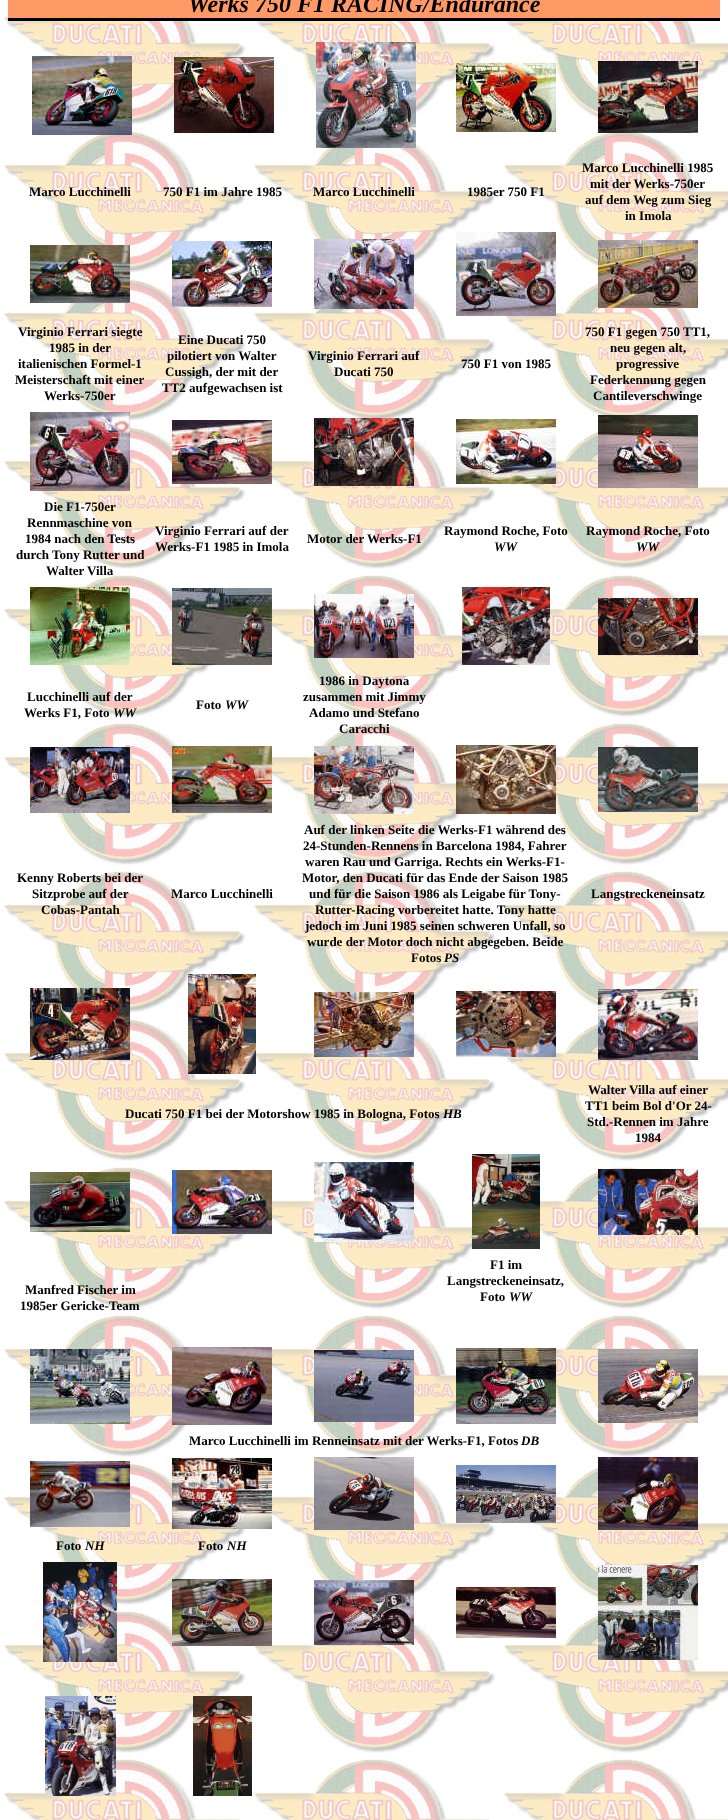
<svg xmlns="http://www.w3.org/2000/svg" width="728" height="1820">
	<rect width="100%" height="100%" fill="#FFFFFF" />
	<image x="4" y="0" width="724" height="1820" href="assets/img1.png" />
	<rect x="8" y="0" width="712" height="18" fill="#FF9966" />
	<rect x="8" y="18" width="712" height="3" fill="#000000" />
	<text x="188" y="12" font-family="Liberation Serif" font-size="24" font-weight="700" font-style="italic" fill="#000000">Werks 750 F1 RACING/Endurance</text>
	<image x="32" y="56" width="100" height="79" href="assets/img2.png" />
	<image x="174" y="57" width="100" height="76" href="assets/img3.png" />
	<image x="316" y="42" width="100" height="106" href="assets/img4.png" />
	<image x="456" y="63" width="100" height="69" href="assets/img5.png" />
	<image x="598" y="61" width="100" height="72" href="assets/img6.png" />
	<g font-family="Liberation Serif" font-size="13" font-weight="700" fill="#000000">
		<text x="29" y="196">Marco Lucchinelli</text>
		<text x="163" y="196">750 F1 im Jahre 1985</text>
		<text x="313" y="196">Marco Lucchinelli</text>
		<text x="467" y="196">1985er 750 F1</text>
		<text x="582" y="172">Marco Lucchinelli 1985</text>
		<text x="590" y="188">mit der Werks-750er</text>
		<text x="585" y="204">auf dem Weg zum Sieg</text>
		<text x="625" y="220">in Imola</text>
	</g>
	<image x="30" y="245" width="100" height="58" href="assets/img7.png" />
	<image x="172" y="241" width="100" height="66" href="assets/img8.png" />
	<image x="314" y="239" width="100" height="70" href="assets/img9.png" />
	<image x="456" y="232" width="100" height="84" href="assets/img10.png" />
	<image x="598" y="240" width="100" height="68" href="assets/img11.png" />
	<g font-family="Liberation Serif" font-size="13" font-weight="700" fill="#000000">
		<text x="18" y="336">Virginio Ferrari siegte</text>
		<text x="49" y="352">1985 in der</text>
		<text x="18" y="368">italienischen Formel-1</text>
		<text x="15" y="384">Meisterschaft mit einer</text>
		<text x="44" y="400">Werks-750er</text>
		<text x="178" y="344">Eine Ducati 750</text>
		<text x="167" y="360">pilotiert von Walter</text>
		<text x="165" y="376">Cussigh, der mit der</text>
		<text x="162" y="392">TT2 aufgewachsen ist</text>
		<text x="308" y="360">Virginio Ferrari auf</text>
		<text x="334" y="376">Ducati 750</text>
		<text x="461" y="368">750 F1 von 1985</text>
		<text x="585" y="336">750 F1 gegen 750 TT1,</text>
		<text x="610" y="352">neu gegen alt,</text>
		<text x="616" y="368">progressive</text>
		<text x="590" y="384">Federkennung gegen</text>
		<text x="593" y="400">Cantileverschwinge</text>
	</g>
	<image x="30" y="412" width="100" height="79" href="assets/img12.png" />
	<image x="172" y="420" width="100" height="64" href="assets/img13.png" />
	<image x="314" y="418" width="100" height="68" href="assets/img14.png" />
	<image x="456" y="419" width="100" height="65" href="assets/img15.png" />
	<image x="598" y="415" width="100" height="73" href="assets/img16.png" />
	<g font-family="Liberation Serif" font-size="13" font-weight="700" fill="#000000">
		<text x="44" y="511">Die F1-750er</text>
		<text x="27" y="527">Rennmaschine von</text>
		<text x="25" y="543">1984 nach den Tests</text>
		<text x="16" y="559">durch Tony Rutter und</text>
		<text x="46" y="575">Walter Villa</text>
		<text x="155" y="535">Virginio Ferrari auf der</text>
		<text x="155" y="551">Werks-F1 1985 in Imola</text>
		<text x="307" y="543">Motor der Werks-F1</text>
		<text x="444" y="535">Raymond Roche, Foto</text>
	</g>
	<text x="494" y="551" font-family="Liberation Serif" font-size="13" font-weight="700" font-style="italic" fill="#000000">WW</text>
	<text x="586" y="535" font-family="Liberation Serif" font-size="13" font-weight="700" fill="#000000">Raymond Roche, Foto</text>
	<text x="636" y="551" font-family="Liberation Serif" font-size="13" font-weight="700" font-style="italic" fill="#000000">WW</text>
	<image x="30" y="587" width="100" height="78" href="assets/img17.png" />
	<image x="172" y="588" width="100" height="77" href="assets/img18.png" />
	<image x="314" y="594" width="100" height="64" href="assets/img19.png" />
	<image x="462" y="587" width="88" height="78" href="assets/img20.png" />
	<image x="598" y="598" width="100" height="57" href="assets/img21.png" />
	<g font-family="Liberation Serif" font-size="13" font-weight="700" fill="#000000">
		<text x="27" y="701">Lucchinelli auf der</text>
		<text x="24" y="717">Werks F1, Foto</text>
	</g>
	<text x="113" y="717" font-family="Liberation Serif" font-size="13" font-weight="700" font-style="italic" fill="#000000">WW</text>
	<text x="196" y="709" font-family="Liberation Serif" font-size="13" font-weight="700" fill="#000000">Foto</text>
	<text x="225" y="709" font-family="Liberation Serif" font-size="13" font-weight="700" font-style="italic" fill="#000000">WW</text>
	<g font-family="Liberation Serif" font-size="13" font-weight="700" fill="#000000">
		<text x="319" y="685">1986 in Daytona</text>
		<text x="303" y="701">zusammen mit Jimmy</text>
		<text x="309" y="717">Adamo und Stefano</text>
		<text x="339" y="733">Caracchi</text>
	</g>
	<image x="30" y="747" width="100" height="66" href="assets/img22.png" />
	<image x="172" y="746" width="100" height="67" href="assets/img23.png" />
	<image x="314" y="746" width="100" height="68" href="assets/img24.png" />
	<image x="456" y="745" width="100" height="69" href="assets/img25.png" />
	<image x="598" y="747" width="100" height="65" href="assets/img26.png" />
	<g font-family="Liberation Serif" font-size="13" font-weight="700" fill="#000000">
		<text x="17" y="882">Kenny Roberts bei der</text>
		<text x="32" y="898">Sitzprobe auf der</text>
		<text x="41" y="914">Cobas-Pantah</text>
		<text x="171" y="898">Marco Lucchinelli</text>
		<text x="304" y="834">Auf der linken Seite die Werks-F1 während des</text>
		<text x="303" y="850">24-Stunden-Rennens in Barcelona 1984, Fahrer</text>
		<text x="305" y="866">waren Rau und Garriga. Rechts ein Werks-F1-</text>
		<text x="302" y="882">Motor, den Ducati für das Ende der Saison 1985</text>
		<text x="309" y="898">und für die Saison 1986 als Leigabe für Tony-</text>
		<text x="315" y="914">Rutter-Racing vorbereitet hatte. Tony hatte</text>
		<text x="305" y="930">jedoch im Juni 1985 seinen schweren Unfall, so</text>
		<text x="307" y="946">wurde der Motor doch nicht abgegeben. Beide</text>
		<text x="411" y="962">Fotos</text>
	</g>
	<text x="444" y="962" font-family="Liberation Serif" font-size="13" font-weight="700" font-style="italic" fill="#000000">PS</text>
	<text x="591" y="898" font-family="Liberation Serif" font-size="13" font-weight="700" fill="#000000">Langstreckeneinsatz</text>
	<image x="30" y="988" width="100" height="72" href="assets/img27.png" />
	<image x="188" y="974" width="68" height="100" href="assets/img28.png" />
	<image x="314" y="992" width="100" height="65" href="assets/img29.png" />
	<image x="456" y="991" width="100" height="66" href="assets/img30.png" />
	<image x="598" y="989" width="100" height="71" href="assets/img31.png" />
	<text x="125" y="1118" font-family="Liberation Serif" font-size="13" font-weight="700" fill="#000000">Ducati 750 F1 bei der Motorshow 1985 in Bologna, Fotos</text>
	<text x="443" y="1118" font-family="Liberation Serif" font-size="13" font-weight="700" font-style="italic" fill="#000000">HB</text>
	<g font-family="Liberation Serif" font-size="13" font-weight="700" fill="#000000">
		<text x="588" y="1094">Walter Villa auf einer</text>
		<text x="585" y="1110">TT1 beim Bol d'Or 24-</text>
		<text x="587" y="1126">Std.-Rennen im Jahre</text>
		<text x="635" y="1142">1984</text>
	</g>
	<image x="30" y="1172" width="100" height="60" href="assets/img32.png" />
	<image x="172" y="1170" width="100" height="64" href="assets/img33.png" />
	<image x="314" y="1162" width="100" height="80" href="assets/img34.png" />
	<image x="472" y="1154" width="68" height="95" href="assets/img35.png" />
	<image x="598" y="1169" width="100" height="66" href="assets/img36.png" />
	<g font-family="Liberation Serif" font-size="13" font-weight="700" fill="#000000">
		<text x="25" y="1294">Manfred Fischer im</text>
		<text x="20" y="1310">1985er Gericke-Team</text>
		<text x="490" y="1269">F1 im</text>
		<text x="447" y="1285">Langstreckeneinsatz,</text>
		<text x="480" y="1301">Foto</text>
	</g>
	<text x="509" y="1301" font-family="Liberation Serif" font-size="13" font-weight="700" font-style="italic" fill="#000000">WW</text>
	<image x="30" y="1349" width="100" height="75" href="assets/img37.png" />
	<image x="172" y="1347" width="100" height="78" href="assets/img38.png" />
	<image x="314" y="1350" width="100" height="72" href="assets/img39.png" />
	<image x="456" y="1348" width="100" height="76" href="assets/img40.png" />
	<image x="598" y="1349" width="100" height="74" href="assets/img41.png" />
	<text x="189" y="1445" font-family="Liberation Serif" font-size="13" font-weight="700" fill="#000000">Marco Lucchinelli im Renneinsatz mit der Werks-F1, Fotos</text>
	<text x="521" y="1445" font-family="Liberation Serif" font-size="13" font-weight="700" font-style="italic" fill="#000000">DB</text>
	<image x="30" y="1461" width="100" height="66" href="assets/img42.png" />
	<image x="172" y="1458" width="100" height="71" href="assets/img43.png" />
	<image x="314" y="1457" width="100" height="73" href="assets/img44.png" />
	<image x="456" y="1465" width="100" height="58" href="assets/img45.png" />
	<image x="598" y="1457" width="100" height="73" href="assets/img46.png" />
	<text x="56" y="1550" font-family="Liberation Serif" font-size="13" font-weight="700" fill="#000000">Foto</text>
	<text x="85" y="1550" font-family="Liberation Serif" font-size="13" font-weight="700" font-style="italic" fill="#000000">NH</text>
	<text x="198" y="1550" font-family="Liberation Serif" font-size="13" font-weight="700" fill="#000000">Foto</text>
	<text x="227" y="1550" font-family="Liberation Serif" font-size="13" font-weight="700" font-style="italic" fill="#000000">NH</text>
	<image x="43" y="1562" width="74" height="100" href="assets/img47.png" />
	<image x="172" y="1579" width="100" height="67" href="assets/img48.png" />
	<image x="314" y="1580" width="100" height="65" href="assets/img49.png" />
	<image x="456" y="1587" width="100" height="51" href="assets/img50.png" />
	<image x="598" y="1565" width="100" height="95" href="assets/img51.png" />
	<image x="45" y="1696" width="71" height="100" href="assets/img52.png" />
	<image x="193" y="1696" width="59" height="100" href="assets/img53.png" />
</svg>
